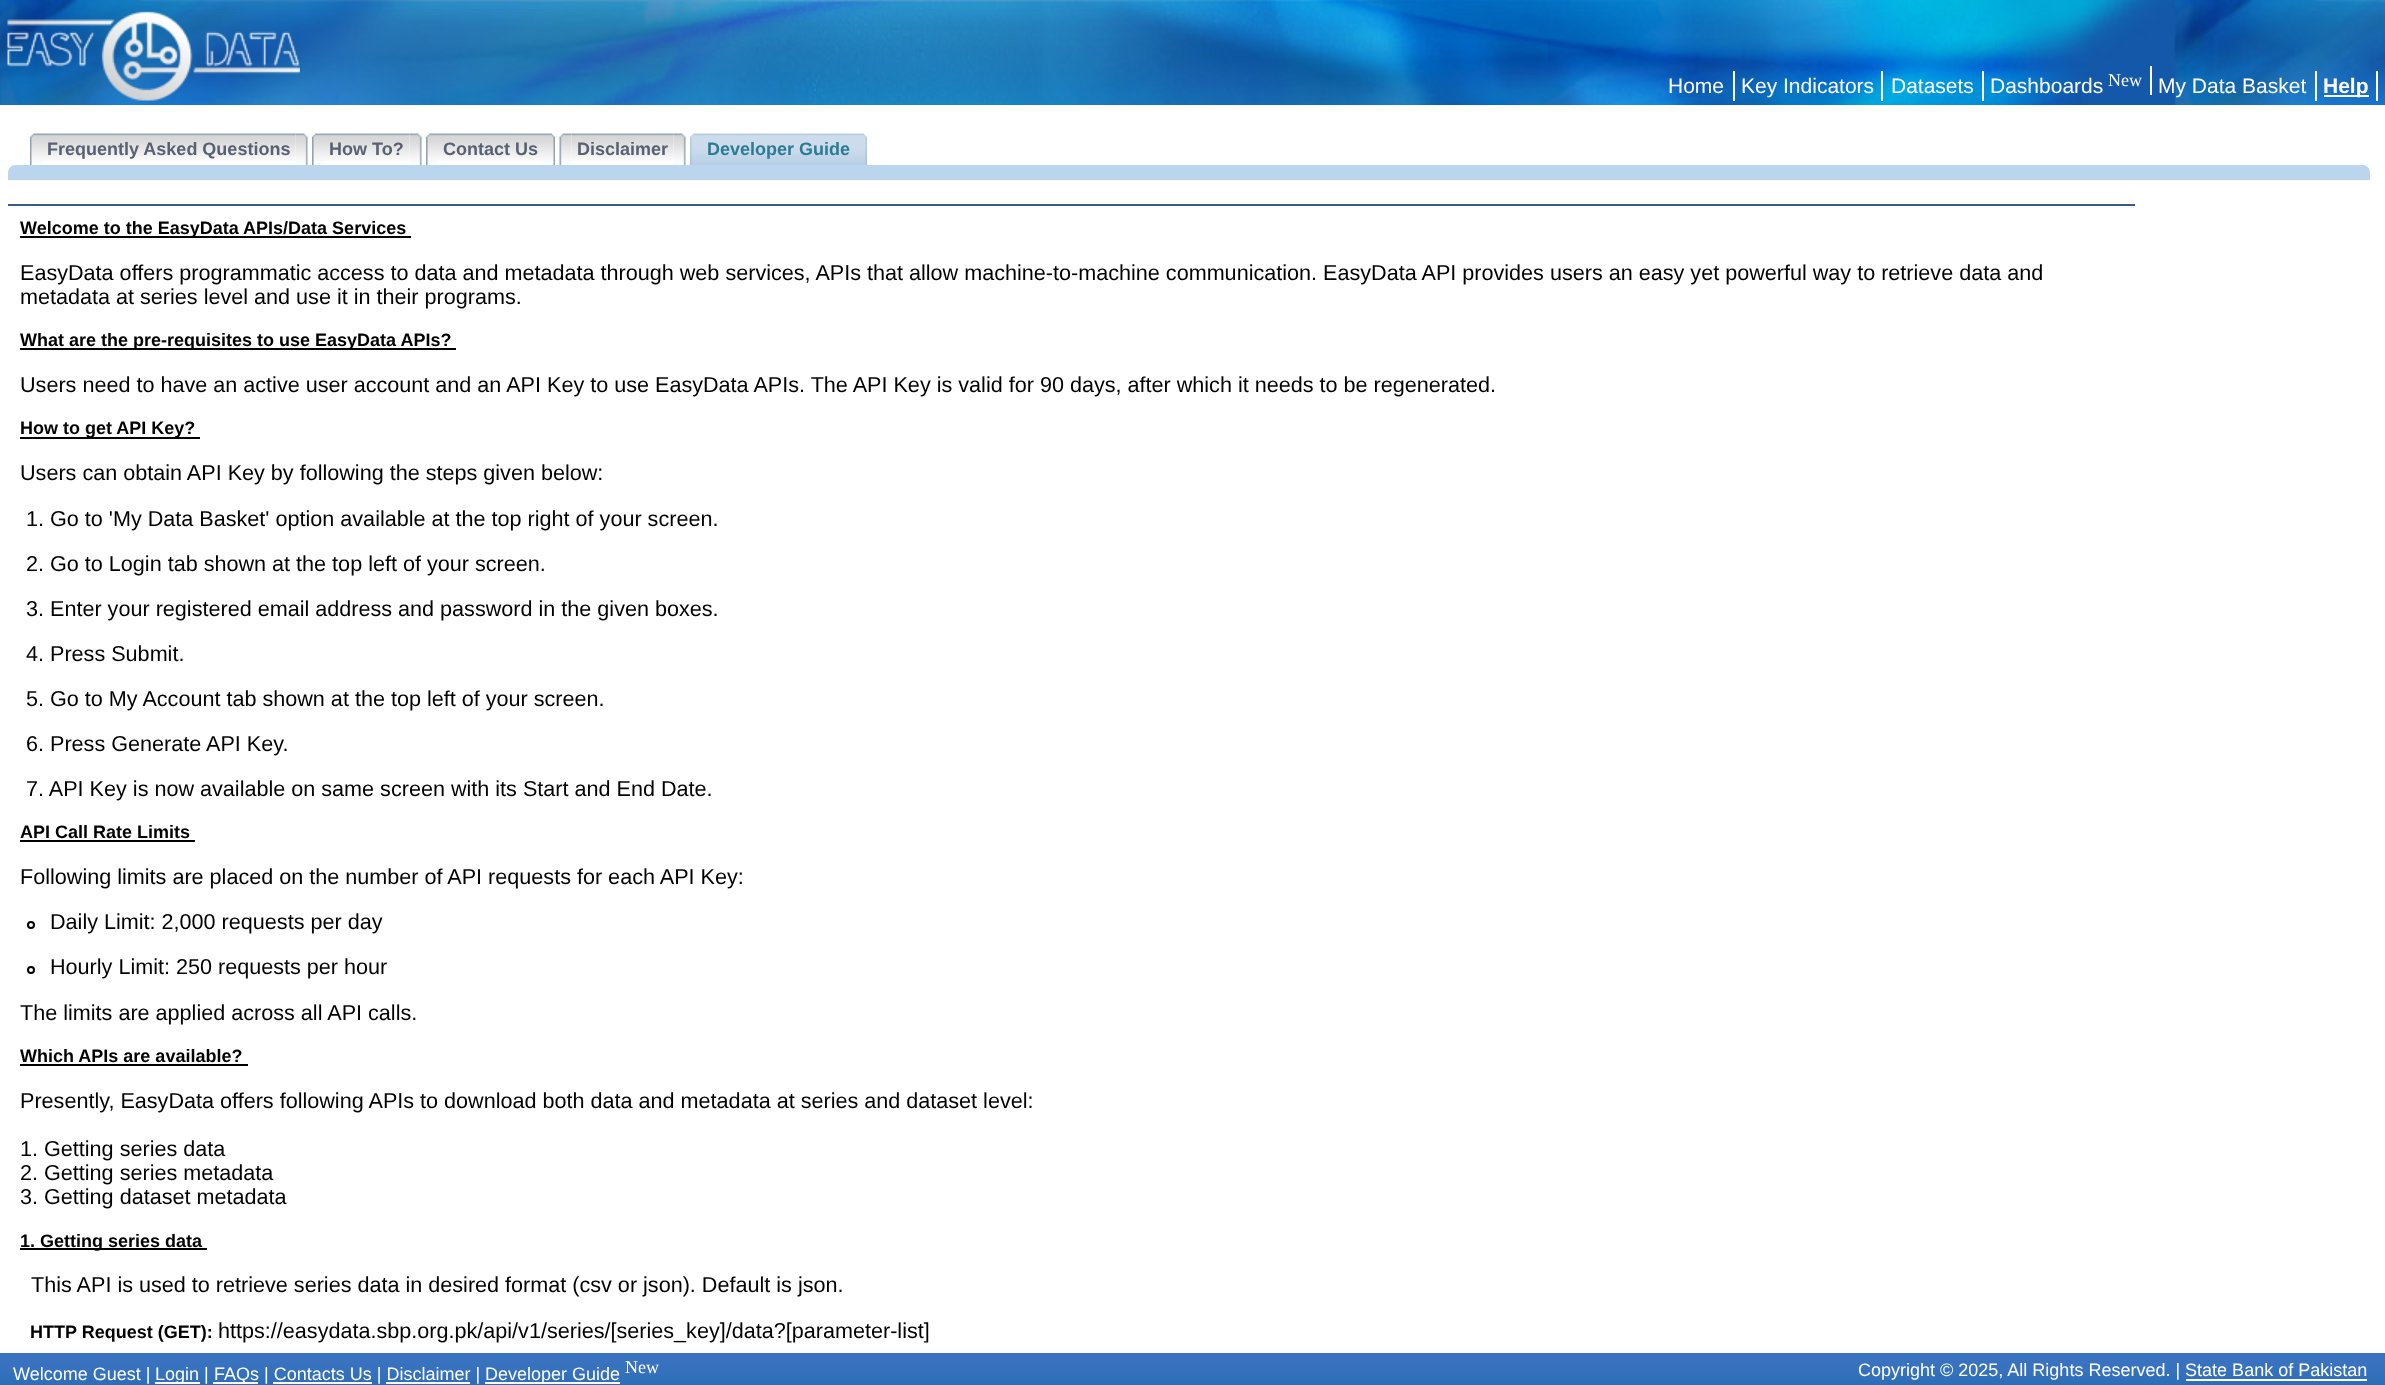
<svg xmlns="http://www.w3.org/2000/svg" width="2385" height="1385">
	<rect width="100%" height="100%" fill="#FFFFFF" />
	<image x="0" y="0" width="2385" height="105" href="assets/img1.png" />
	<image x="7" y="11" width="293" height="90" href="assets/img2.png" />
	<text x="1668" y="93" font-family="Liberation Sans" font-size="21" fill="#FFFFFF">Home</text>
	<rect x="1733" y="71" width="2" height="30" fill="#FFFFFF" />
	<text x="1741" y="93" font-family="Liberation Sans" font-size="21" fill="#FFFFFF">Key Indicators</text>
	<rect x="1881" y="71" width="2" height="30" fill="#FFFFFF" />
	<text x="1891" y="93" font-family="Liberation Sans" font-size="21" fill="#FFFFFF">Datasets</text>
	<rect x="1982" y="71" width="2" height="30" fill="#FFFFFF" />
	<rect x="2150" y="66" width="2" height="29" fill="#FFFFFF" />
	<text x="1990" y="93" font-family="Liberation Sans" font-size="21" fill="#FFFFFF">Dashboards</text>
	<text x="2108" y="86" font-family="Liberation Serif" font-size="18" fill="#FFFFFF">New</text>
	<text x="2158" y="93" font-family="Liberation Sans" font-size="21" fill="#FFFFFF">My Data Basket</text>
	<rect x="2315" y="71" width="2" height="30" fill="#FFFFFF" />
	<rect x="2324" y="95" width="45" height="2" fill="#FFFFFF" />
	<text x="2323" y="93" font-family="Liberation Sans" font-size="21" font-weight="700" fill="#FFFFFF">Help</text>
	<rect x="2376" y="71" width="2" height="30" fill="#FFFFFF" />
	<image x="30" y="133" width="12" height="32" href="assets/img3.png" />
	<image x="42" y="133" width="254" height="28" href="assets/img4.png" />
	<text x="47" y="155" font-family="Liberation Sans" font-size="18" font-weight="700" fill="#586073">Frequently Asked Questions</text>
	<image x="295" y="133" width="13" height="32" href="assets/img5.png" />
	<image x="312" y="133" width="12" height="32" href="assets/img6.png" />
	<image x="324" y="133" width="86" height="28" href="assets/img7.png" />
	<text x="329" y="155" font-family="Liberation Sans" font-size="18" font-weight="700" fill="#586073">How To?</text>
	<image x="409" y="133" width="13" height="32" href="assets/img5.png" />
	<image x="426" y="133" width="12" height="32" href="assets/img6.png" />
	<image x="438" y="133" width="105" height="28" href="assets/img8.png" />
	<text x="443" y="155" font-family="Liberation Sans" font-size="18" font-weight="700" fill="#586073">Contact Us</text>
	<image x="543" y="133" width="12" height="32" href="assets/img9.png" />
	<image x="571" y="133" width="103" height="28" href="assets/img11.png" />
	<image x="559" y="133" width="13" height="32" href="assets/img10.png" />
	<text x="577" y="155" font-family="Liberation Sans" font-size="18" font-weight="700" fill="#586073">Disclaimer</text>
	<image x="673" y="133" width="13" height="32" href="assets/img5.png" />
	<image x="690" y="133" width="12" height="32" href="assets/img12.png" />
	<image x="702" y="133" width="153" height="32" href="assets/img13.png" />
	<text x="707" y="155" font-family="Liberation Sans" font-size="18" font-weight="700" fill="#2B7C92">Developer Guide</text>
	<image x="855" y="133" width="12" height="32" href="assets/img14.png" />
	<path d="M15.5 165H2362.5C2366.5 165 2370 168.5 2370 172.5V180H8V172.5C8 168.5 11.5 165 15.5 165Z" fill="#BBD5EF" />
	<rect x="8" y="204" width="2127" height="2" fill="#3A5A87" />
	<rect x="20" y="236" width="391" height="2" fill="#000000" />
	<text x="20" y="234" font-family="Liberation Sans" font-size="18" font-weight="700" fill="#000000">Welcome to the EasyData APIs/Data Services</text>
	<g font-family="Liberation Sans" font-size="21.6" fill="#000000">
		<text x="20" y="280">EasyData offers programmatic access to data and metadata through web services, APIs that allow machine-to-machine communication. EasyData API provides users an easy yet powerful way to retrieve data and</text>
		<text x="20" y="304">metadata at series level and use it in their programs.</text>
	</g>
	<rect x="20" y="348" width="436" height="2" fill="#000000" />
	<text x="20" y="346" font-family="Liberation Sans" font-size="18" font-weight="700" fill="#000000">What are the pre-requisites to use EasyData APIs?</text>
	<text x="20" y="392" font-family="Liberation Sans" font-size="21.6" fill="#000000">Users need to have an active user account and an API Key to use EasyData APIs. The API Key is valid for 90 days, after which it needs to be regenerated.</text>
	<rect x="20" y="437" width="180" height="2" fill="#000000" />
	<text x="20" y="434" font-family="Liberation Sans" font-size="18" font-weight="700" fill="#000000">How to get API Key?</text>
	<g font-family="Liberation Sans" font-size="21.6" fill="#000000">
		<text x="20" y="480">Users can obtain API Key by following the steps given below:</text>
		<text x="26" y="526">1. Go to 'My Data Basket' option available at the top right of your screen.</text>
		<text x="26" y="571">2. Go to Login tab shown at the top left of your screen.</text>
		<text x="26" y="616">3. Enter your registered email address and password in the given boxes.</text>
		<text x="26" y="661">4. Press Submit.</text>
		<text x="26" y="706">5. Go to My Account tab shown at the top left of your screen.</text>
		<text x="26" y="751">6. Press Generate API Key.</text>
		<text x="26" y="796">7. API Key is now available on same screen with its Start and End Date.</text>
	</g>
	<text x="20" y="838" font-family="Liberation Sans" font-size="18" font-weight="700" fill="#000000">API Call Rate Limits</text>
	<rect x="20" y="840" width="175" height="2" fill="#000000" />
	<text x="20" y="884" font-family="Liberation Sans" font-size="21.6" fill="#000000">Following limits are placed on the number of API requests for each API Key:</text>
	<circle cx="31" cy="925" r="3" fill="none" stroke="#000000" stroke-width="2" />
	<text x="50" y="929" font-family="Liberation Sans" font-size="21.6" fill="#000000">Daily Limit: 2,000 requests per day</text>
	<circle cx="31" cy="970" r="3" fill="none" stroke="#000000" stroke-width="2" />
	<g font-family="Liberation Sans" font-size="21.6" fill="#000000">
		<text x="50" y="974">Hourly Limit: 250 requests per hour</text>
		<text x="20" y="1020">The limits are applied across all API calls.</text>
	</g>
	<text x="20" y="1062" font-family="Liberation Sans" font-size="18" font-weight="700" fill="#000000">Which APIs are available?</text>
	<rect x="20" y="1064" width="228" height="2" fill="#000000" />
	<g font-family="Liberation Sans" font-size="21.6" fill="#000000">
		<text x="20" y="1108">Presently, EasyData offers following APIs to download both data and metadata at series and dataset level:</text>
		<text x="20" y="1156">1. Getting series data</text>
		<text x="20" y="1180">2. Getting series metadata</text>
		<text x="20" y="1204">3. Getting dataset metadata</text>
	</g>
	<rect x="20" y="1248" width="187" height="2" fill="#000000" />
	<text x="20" y="1247" font-family="Liberation Sans" font-size="18" font-weight="700" fill="#000000">1. Getting series data</text>
	<text x="31" y="1292" font-family="Liberation Sans" font-size="21.6" fill="#000000">This API is used to retrieve series data in desired format (csv or json). Default is json.</text>
	<text x="30" y="1338" font-family="Liberation Sans" font-size="18" font-weight="700" fill="#000000">HTTP Request (GET):</text>
	<text x="218" y="1338" font-family="Liberation Sans" font-size="21.6" fill="#000000">https://easydata.sbp.org.pk/api/v1/series/[series_key]/data?[parameter-list]</text>
	<image x="0" y="1353" width="2385" height="32" href="assets/img15.png" />
	<text x="13" y="1380" font-family="Liberation Sans" font-size="18" fill="#FFFFFF">Welcome Guest |</text>
	<rect x="155" y="1382" width="45" height="2" fill="#FFFFFF" />
	<text x="155" y="1380" font-family="Liberation Sans" font-size="18" fill="#FFFFFF">Login |</text>
	<rect x="213" y="1382" width="45" height="2" fill="#FFFFFF" />
	<text x="214" y="1380" font-family="Liberation Sans" font-size="18" fill="#FFFFFF">FAQs | Contacts Us | Disclaimer |</text>
	<rect x="485" y="1382" width="135" height="2" fill="#FFFFFF" />
	<text x="485" y="1380" font-family="Liberation Sans" font-size="18" fill="#FFFFFF">Developer Guide</text>
	<text x="625" y="1373" font-family="Liberation Serif" font-size="18" fill="#FFFFFF">New</text>
	<rect x="273" y="1382" width="99" height="2" fill="#FFFFFF" />
	<rect x="386" y="1382" width="84" height="2" fill="#FFFFFF" />
	<text x="1858" y="1376" font-family="Liberation Sans" font-size="18" fill="#FFFFFF">Copyright © 2025, All Rights Reserved. | State Bank of Pakistan</text>
	<rect x="2186" y="1379" width="181" height="2" fill="#FFFFFF" />
</svg>
